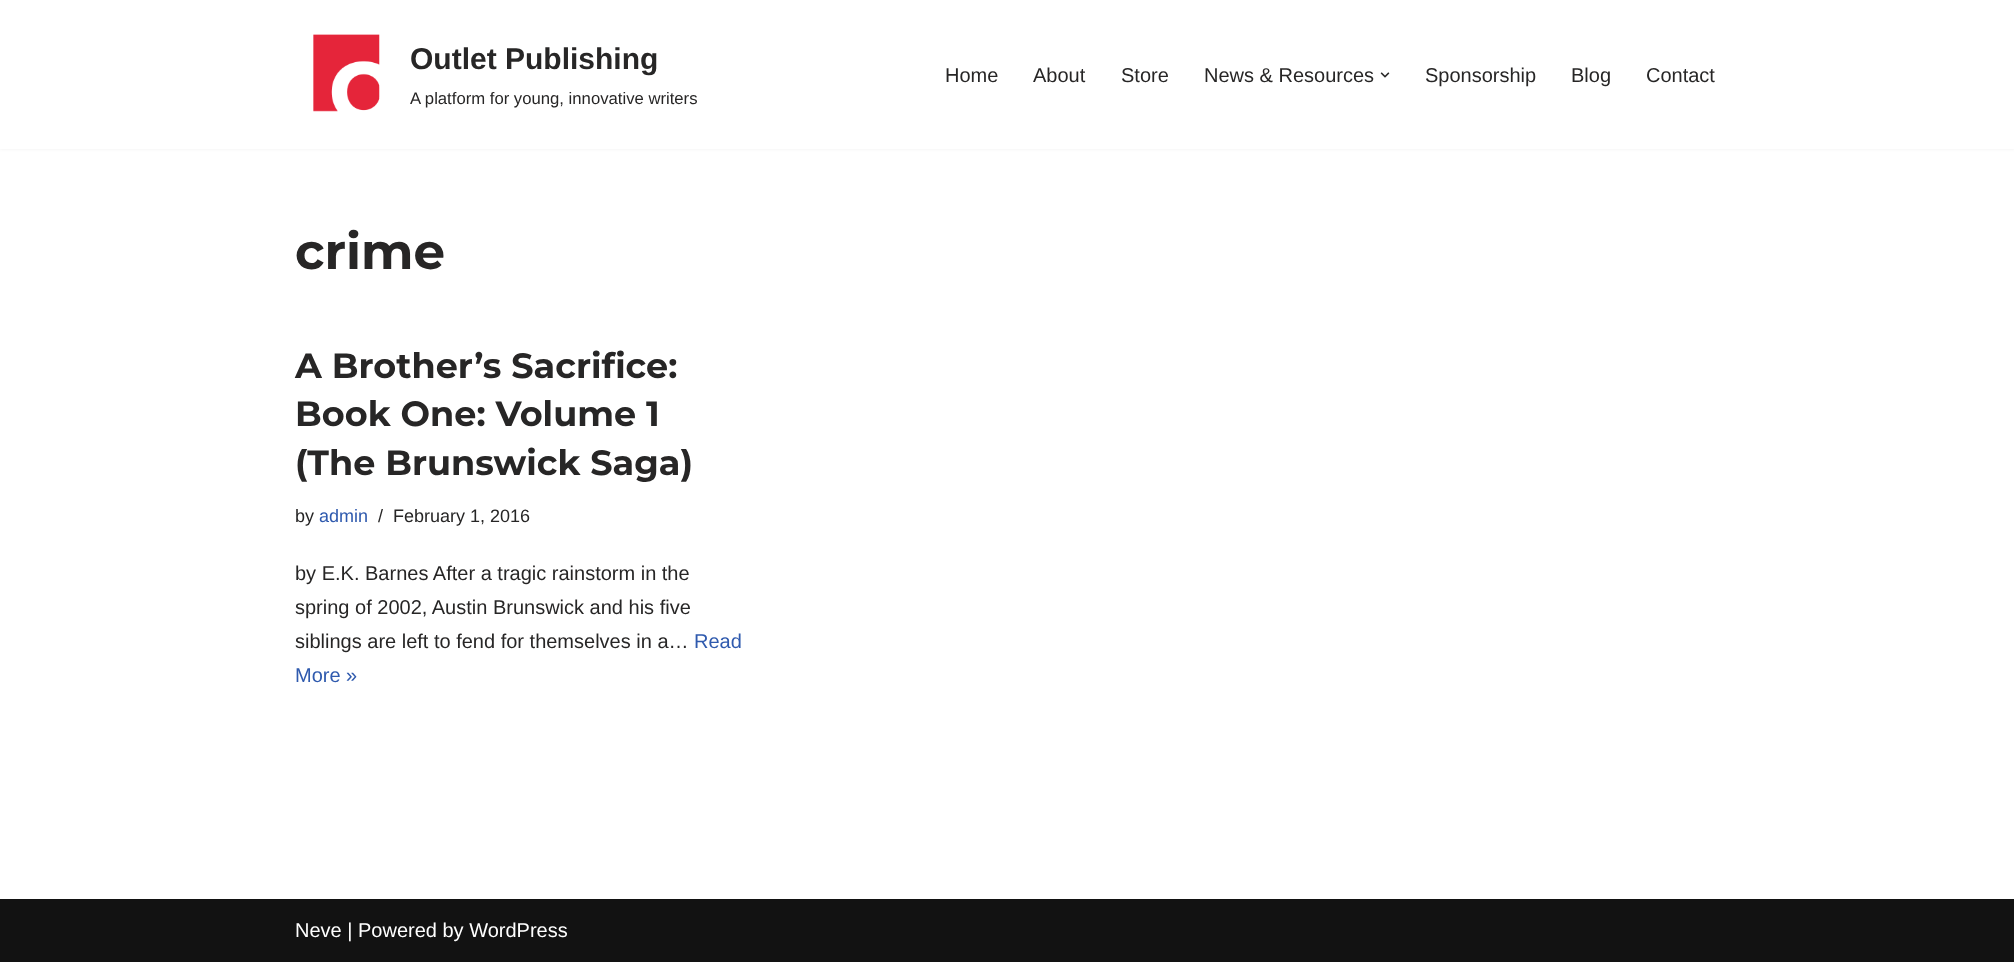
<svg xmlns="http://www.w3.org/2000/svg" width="2014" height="962">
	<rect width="100%" height="100%" fill="#FFFFFF" />
	<rect x="0" y="-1" width="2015" height="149" fill="#000000" fill-opacity="0.1" filter="blur(2px)" />
	<rect x="0" y="0" width="2014" height="149" fill="#FFFFFF" />
	<image x="313" y="34" width="67" height="78" href="assets/img1.png" />
	<text x="410" y="69" font-family="Liberation Sans" font-size="30" font-weight="700" fill="#272626">Outlet Publishing</text>
	<text x="410" y="104" font-family="Liberation Sans" font-size="16.7" fill="#272626">A platform for young, innovative writers</text>
	<g font-family="Liberation Sans" font-size="20" fill="#272626">
		<text x="945" y="82">Home</text>
		<text x="1033" y="82">About</text>
		<text x="1121" y="82">Store</text>
		<text x="1204" y="82">News &amp; Resources</text>
	</g>
	<image x="1380" y="72" width="10" height="6" href="assets/img2.png" />
	<g font-family="Liberation Sans" font-size="20" fill="#272626">
		<text x="1425" y="82">Sponsorship</text>
		<text x="1571" y="82">Blog</text>
		<text x="1646" y="82">Contact</text>
	</g>
	<text x="295" y="269" font-family="Montserrat" font-size="50" font-weight="700" fill="#272626">crime</text>
	<g font-family="Montserrat" font-size="35" font-weight="700" fill="#272626">
		<text x="295" y="378">A Brother’s Sacrifice:</text>
		<text x="295" y="426">Book One: Volume 1</text>
		<text x="295" y="475">(The Brunswick Saga)</text>
	</g>
	<text x="295" y="522" font-family="Liberation Sans" font-size="18" fill="#272626">by</text>
	<text x="319" y="522" font-family="Liberation Sans" font-size="18" fill="#2F5AAE">admin</text>
	<g font-family="Liberation Sans" font-size="18" fill="#272626">
		<text x="378" y="522">/</text>
		<text x="393" y="522">February 1, 2016</text>
	</g>
	<g font-family="Liberation Sans" font-size="20" fill="#272626">
		<text x="295" y="580">by E.K. Barnes After a tragic rainstorm in the</text>
		<text x="295" y="614">spring of 2002, Austin Brunswick and his five</text>
		<text x="295" y="648">siblings are left to fend for themselves in a…</text>
	</g>
	<g font-family="Liberation Sans" font-size="20" fill="#2F5AAE">
		<text x="694" y="648">Read</text>
		<text x="295" y="682">More »</text>
	</g>
	<rect x="0" y="899" width="2014" height="63" fill="#121212" />
	<text x="295" y="937" font-family="Liberation Sans" font-size="20" fill="#FFFFFF">Neve | Powered by WordPress</text>
</svg>
